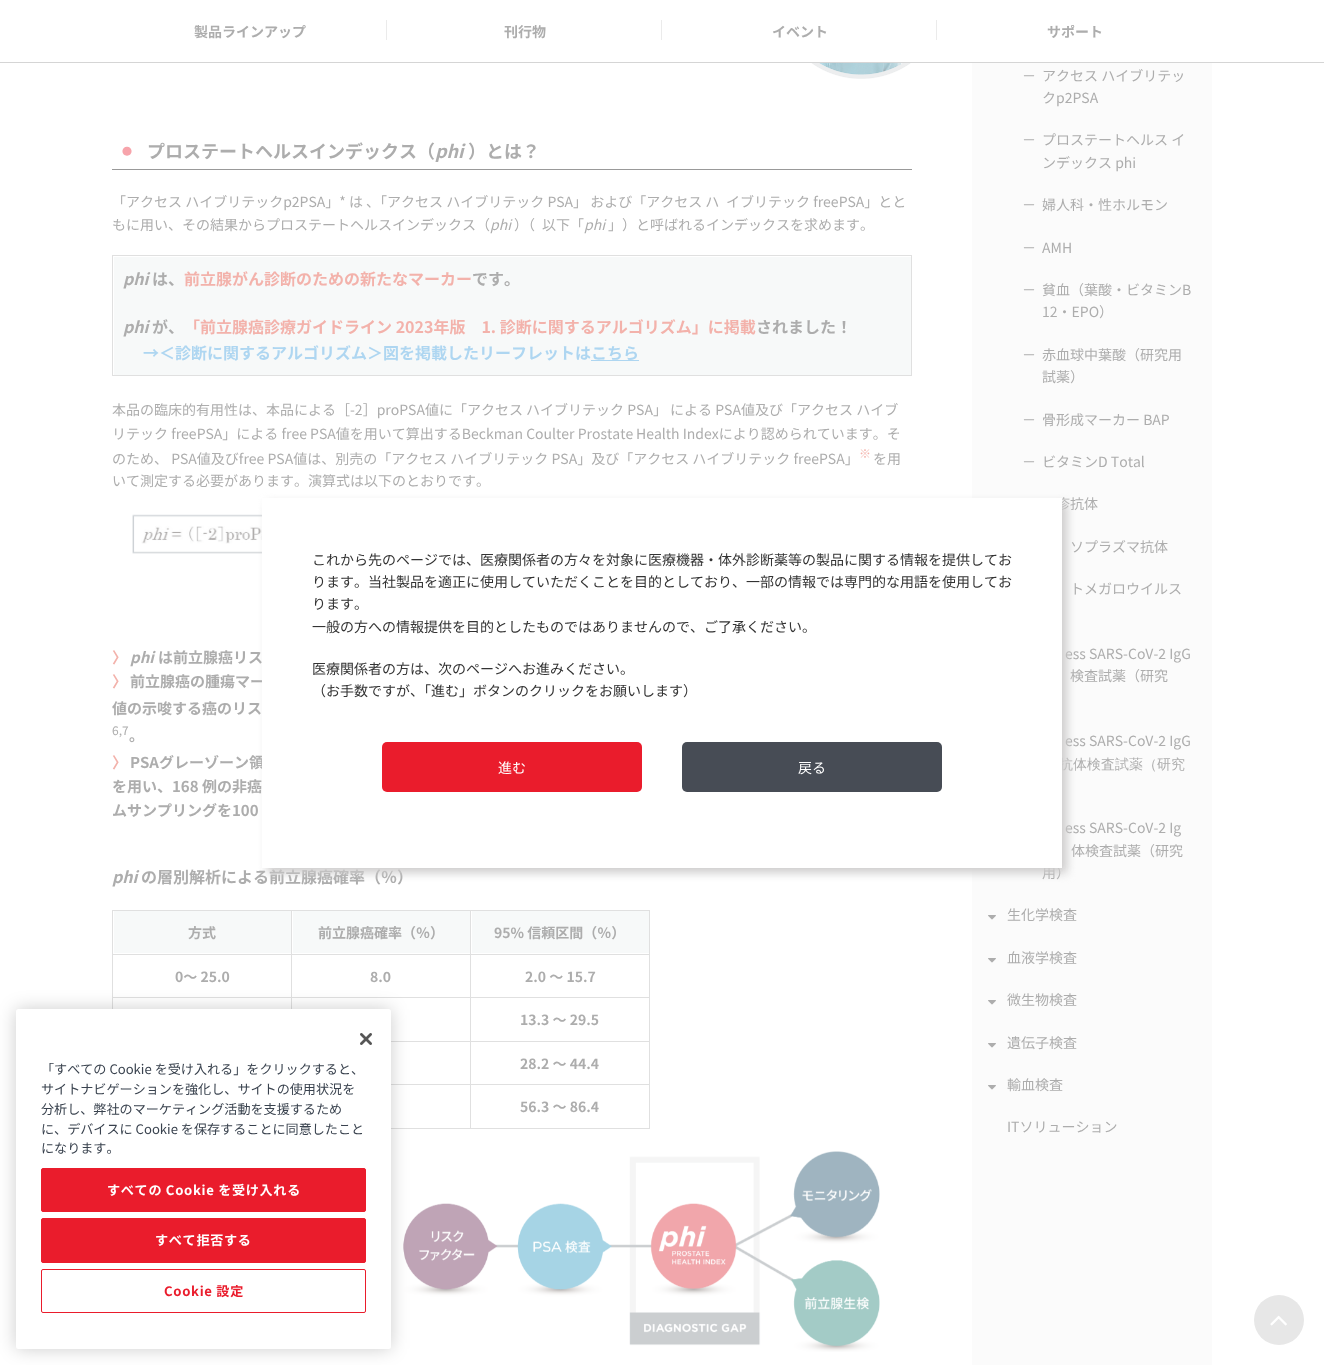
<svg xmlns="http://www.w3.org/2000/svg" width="1324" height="1365">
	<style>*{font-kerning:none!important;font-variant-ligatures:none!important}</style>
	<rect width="100%" height="100%" fill="#FFFFFF" />
	<rect x="0" y="62" width="1324" height="1" fill="#D5D5D5" />
	<text x="194" y="37" font-family="Noto Sans JP" font-size="14" font-weight="700" fill="#ADADAD">製品ラインアップ</text>
	<rect x="386" y="20" width="1" height="20" fill="#EBEBEB" />
	<text x="504" y="37" font-family="Noto Sans JP" font-size="14" font-weight="700" fill="#ADADAD">刊行物</text>
	<rect x="661" y="20" width="1" height="20" fill="#EBEBEB" />
	<text x="772" y="37" font-family="Noto Sans JP" font-size="14" font-weight="700" fill="#ADADAD">イベント</text>
	<rect x="936" y="20" width="1" height="20" fill="#EBEBEB" />
	<text x="1047" y="37" font-family="Noto Sans JP" font-size="14" font-weight="700" fill="#ADADAD">サポート</text>
	<image x="775" y="63" width="137" height="16" href="assets/img1.png" />
	<rect x="112" y="169" width="800" height="1" fill="#999999" />
	<text x="122" y="155" font-family="Noto Sans JP" font-size="10" font-weight="700" fill="#F7A4AB">●</text>
	<text x="147" y="158" font-family="Noto Sans JP" font-size="18" font-weight="700" fill="#ADADAD">プロステートヘルスインデックス（</text>
	<text x="435" y="158" font-family="Noto Sans JP" font-size="18" font-weight="700" font-style="italic" fill="#ADADAD">phi</text>
	<text x="468" y="158" font-family="Noto Sans JP" font-size="18" font-weight="700" fill="#ADADAD">）とは？</text>
	<g font-family="Noto Sans JP" font-size="14" fill="#ADADAD">
		<text x="112" y="207">「アクセス ハイブリテックp2PSA」* は 、「アクセス ハイブリテック PSA」 および「アクセス ハ</text>
		<text x="726" y="207">イブリテック freePSA」とと</text>
		<text x="112" y="230">もに用い、その結果からプロステートヘルスインデックス（</text>
	</g>
	<text x="490" y="230" font-family="Noto Sans JP" font-size="14" font-style="italic" fill="#ADADAD">phi</text>
	<text x="514" y="230" font-family="Noto Sans JP" font-size="14" fill="#ADADAD">）（</text>
	<text x="542" y="230" font-family="Noto Sans JP" font-size="14" fill="#ADADAD">以下「</text>
	<text x="584" y="230" font-family="Noto Sans JP" font-size="14" font-style="italic" fill="#ADADAD">phi</text>
	<text x="608" y="230" font-family="Noto Sans JP" font-size="14" fill="#ADADAD">」</text>
	<text x="622" y="230" font-family="Noto Sans JP" font-size="14" fill="#ADADAD">）と呼ばれるインデックスを求めます。</text>
	<rect x="114" y="257" width="797" height="118" fill="#F7F9F9" />
	<rect x="112" y="255" width="800" height="1" fill="#E0E0E0" />
	<rect x="911" y="255" width="1" height="121" fill="#E0E0E0" />
	<rect x="112" y="375" width="800" height="1" fill="#E0E0E0" />
	<rect x="112" y="255" width="1" height="121" fill="#E0E0E0" />
	<text x="123" y="285" font-family="Noto Sans JP" font-size="16" font-weight="700" font-style="italic" fill="#ADADAD">phi</text>
	<text x="152" y="285" font-family="Noto Sans JP" font-size="16" font-weight="700" fill="#ADADAD">は、</text>
	<text x="184" y="285" font-family="Noto Sans JP" font-size="16" font-weight="700" fill="#F3B2AB">前立腺がん診断のための新たなマーカー</text>
	<text x="472" y="285" font-family="Noto Sans JP" font-size="16" font-weight="700" fill="#ADADAD">です。</text>
	<text x="123" y="333" font-family="Noto Sans JP" font-size="16" font-weight="700" font-style="italic" fill="#ADADAD">phi</text>
	<text x="152" y="333" font-family="Noto Sans JP" font-size="16" font-weight="700" fill="#ADADAD">が、</text>
	<text x="184" y="333" font-family="Noto Sans JP" font-size="16" font-weight="700" fill="#F3B2AB">「前立腺癌診療ガイドライン 2023年版　1. 診断に関するアルゴリズム」に掲載</text>
	<text x="756" y="333" font-family="Noto Sans JP" font-size="16" font-weight="700" fill="#ADADAD">されました！</text>
	<text x="143" y="359" font-family="Noto Sans JP" font-size="16" font-weight="700" fill="#AED6F1">→＜診断に関するアルゴリズム＞図を掲載したリーフレットはこちら</text>
	<rect x="591" y="360" width="48" height="1" fill="#AED6F1" />
	<g font-family="Noto Sans JP" font-size="14" fill="#ADADAD">
		<text x="112" y="415">本品の臨床的有用性は、本品による［-2］proPSA値に「アクセス ハイブリテック PSA」 による PSA値及び「ア</text>
		<text x="811" y="415">クセス ハイブ</text>
		<text x="112" y="439">リテック freePSA」による free PSA値を用いて算出するBeckman Coulter Prostate</text>
		<text x="636" y="439">Health Indexにより認められています。そ</text>
		<text x="112" y="464">のため、 PSA値及びfree PSA値は、別売の「アクセス ハイブリテック PSA」及び「アクセス ハイブリテック freePSA」</text>
	</g>
	<text x="859" y="458" font-family="Noto Sans JP" font-size="12" fill="#F3B2AB">※</text>
	<g font-family="Noto Sans JP" font-size="14" fill="#ADADAD">
		<text x="873" y="464">を用</text>
		<text x="112" y="486">いて測定する必要があります。演算式は以下のとおりです。</text>
	</g>
	<image x="132" y="514" width="130" height="40" href="assets/img2.png" />
	<text x="112" y="663" font-family="Noto Sans JP" font-size="15" font-weight="700" fill="#F3B2AB">〉</text>
	<text x="130" y="663" font-family="Noto Sans JP" font-size="15" font-weight="700" font-style="italic" fill="#ADADAD">phi</text>
	<text x="158" y="663" font-family="Noto Sans JP" font-size="15" font-weight="700" fill="#ADADAD">は前立腺癌リス</text>
	<text x="112" y="687" font-family="Noto Sans JP" font-size="15" font-weight="700" fill="#F3B2AB">〉</text>
	<g font-family="Noto Sans JP" font-size="15" font-weight="700" fill="#ADADAD">
		<text x="130" y="687">前立腺癌の腫瘍マー</text>
		<text x="112" y="714">値の示唆する癌のリス</text>
	</g>
	<text x="112" y="735" font-family="Noto Sans JP" font-size="12" fill="#ADADAD">6,7</text>
	<text x="129" y="741" font-family="Noto Sans JP" font-size="15" font-weight="700" fill="#ADADAD">。</text>
	<text x="112" y="768" font-family="Noto Sans JP" font-size="15" font-weight="700" fill="#F3B2AB">〉</text>
	<g font-family="Noto Sans JP" font-size="15" font-weight="700" fill="#ADADAD">
		<text x="130" y="768">PSAグレーゾーン領</text>
		<text x="112" y="792">を用い、168 例の非癌</text>
		<text x="112" y="816">ムサンプリングを100</text>
	</g>
	<text x="112" y="883" font-family="Noto Sans JP" font-size="16" font-weight="700" font-style="italic" fill="#ADADAD">phi</text>
	<text x="141" y="883" font-family="Noto Sans JP" font-size="16" font-weight="700" fill="#ADADAD">の層別解析による前立腺癌確率（％）</text>
	<rect x="114" y="911" width="177" height="42" fill="#F7F9F9" />
	<rect x="470" y="910" width="180" height="1" fill="#E0E0E0" />
	<rect x="470" y="954" width="180" height="1" fill="#E0E0E0" />
	<rect x="470" y="997" width="180" height="1" fill="#E0E0E0" />
	<rect x="470" y="1041" width="180" height="1" fill="#E0E0E0" />
	<rect x="470" y="1084" width="180" height="1" fill="#E0E0E0" />
	<rect x="649" y="1084" width="1" height="45" fill="#E0E0E0" />
	<rect x="470" y="1128" width="180" height="1" fill="#E0E0E0" />
	<rect x="470" y="1084" width="1" height="45" fill="#E0E0E0" />
	<rect x="391" y="1084" width="80" height="1" fill="#E0E0E0" />
	<rect x="470" y="1041" width="1" height="44" fill="#E0E0E0" />
	<rect x="391" y="1041" width="80" height="1" fill="#E0E0E0" />
	<rect x="470" y="997" width="1" height="45" fill="#E0E0E0" />
	<rect x="291" y="997" width="180" height="1" fill="#E0E0E0" />
	<rect x="470" y="954" width="1" height="44" fill="#E0E0E0" />
	<rect x="291" y="954" width="180" height="1" fill="#E0E0E0" />
	<rect x="470" y="910" width="1" height="45" fill="#E0E0E0" />
	<rect x="291" y="910" width="180" height="1" fill="#E0E0E0" />
	<rect x="291" y="997" width="1" height="12" fill="#E0E0E0" />
	<rect x="112" y="997" width="180" height="1" fill="#E0E0E0" />
	<rect x="291" y="954" width="1" height="44" fill="#E0E0E0" />
	<rect x="112" y="954" width="180" height="1" fill="#E0E0E0" />
	<rect x="291" y="910" width="1" height="45" fill="#E0E0E0" />
	<rect x="112" y="910" width="180" height="1" fill="#E0E0E0" />
	<rect x="112" y="997" width="1" height="12" fill="#E0E0E0" />
	<rect x="112" y="954" width="1" height="44" fill="#E0E0E0" />
	<rect x="112" y="910" width="1" height="45" fill="#E0E0E0" />
	<text x="188" y="938" font-family="Noto Sans JP" font-size="14" font-weight="700" fill="#ADADAD">方式</text>
	<rect x="293" y="911" width="177" height="42" fill="#F7F9F9" />
	<text x="318" y="938" font-family="Noto Sans JP" font-size="14" font-weight="700" fill="#ADADAD">前立腺癌確率（％）</text>
	<rect x="472" y="911" width="177" height="42" fill="#F7F9F9" />
	<rect x="649" y="1041" width="1" height="44" fill="#E0E0E0" />
	<rect x="649" y="997" width="1" height="45" fill="#E0E0E0" />
	<rect x="649" y="954" width="1" height="44" fill="#E0E0E0" />
	<rect x="649" y="910" width="1" height="45" fill="#E0E0E0" />
	<g font-family="Noto Sans JP" font-size="14" font-weight="700" fill="#ADADAD">
		<text x="494" y="938">95% 信頼区間（％）</text>
		<text x="175" y="982">0～ 25.0</text>
		<text x="370" y="982">8.0</text>
		<text x="525" y="982">2.0 ～ 15.7</text>
		<text x="520" y="1025">13.3 ～ 29.5</text>
		<text x="520" y="1069">28.2 ～ 44.4</text>
	</g>
	<rect x="391" y="1128" width="80" height="1" fill="#E0E0E0" />
	<text x="520" y="1112" font-family="Noto Sans JP" font-size="14" font-weight="700" fill="#ADADAD">56.3 ～ 86.4</text>
	<image x="403" y="1151" width="477" height="201" href="assets/img3.png" />
	<rect x="972" y="63" width="240" height="1302" fill="#FBFBFB" />
	<g font-family="Noto Sans JP" font-size="14" fill="#ADADAD">
		<text x="1022" y="81">－</text>
		<text x="1042" y="81">アクセス ハイブリテッ</text>
		<text x="1042" y="103">クp2PSA</text>
		<text x="1022" y="145">－</text>
		<text x="1042" y="145">プロステートヘルス イ</text>
		<text x="1042" y="168">ンデックス phi</text>
		<text x="1022" y="210">－</text>
		<text x="1042" y="210">婦人科・性ホルモン</text>
		<text x="1022" y="253">－</text>
		<text x="1042" y="253">AMH</text>
		<text x="1022" y="295">－</text>
		<text x="1042" y="295">貧血（葉酸・ビタミンB</text>
		<text x="1042" y="317">12・EPO）</text>
		<text x="1022" y="360">－</text>
		<text x="1042" y="360">赤血球中葉酸（研究用</text>
		<text x="1042" y="382">試薬）</text>
		<text x="1022" y="425">－</text>
		<text x="1042" y="425">骨形成マーカー BAP</text>
		<text x="1022" y="467">－</text>
		<text x="1042" y="467">ビタミンD Total</text>
		<text x="1056" y="509">疹抗体</text>
		<text x="1070" y="552">ソプラズマ抗体</text>
		<text x="1070" y="594">トメガロウイルス</text>
		<text x="1065" y="659">ess SARS-CoV-2 IgG</text>
		<text x="1070" y="681">検査試薬（研究</text>
		<text x="1065" y="746">ess SARS-CoV-2 IgG</text>
	</g>
	<text x="1059" y="769" word-spacing="-1" font-family="WenQuanYi Zen Hei" font-size="14" font-weight="500" fill="#ADADAD">抗体検査試薬（研究</text>
	<g font-family="Noto Sans JP" font-size="14" fill="#ADADAD">
		<text x="1065" y="833">ess SARS-CoV-2 Ig</text>
		<text x="1071" y="856">体検査試薬（研究</text>
		<text x="1042" y="878">用）</text>
	</g>
	<image x="988" y="915" width="8" height="5" href="assets/img4.png" />
	<text x="1007" y="920" font-family="Noto Sans JP" font-size="14" fill="#ADADAD">生化学検査</text>
	<image x="988" y="958" width="8" height="5" href="assets/img4.png" />
	<text x="1007" y="963" font-family="Noto Sans JP" font-size="14" fill="#ADADAD">血液学検査</text>
	<image x="988" y="1000" width="8" height="5" href="assets/img4.png" />
	<text x="1007" y="1005" font-family="Noto Sans JP" font-size="14" fill="#ADADAD">微生物検査</text>
	<image x="988" y="1043" width="8" height="5" href="assets/img4.png" />
	<text x="1007" y="1048" font-family="Noto Sans JP" font-size="14" fill="#ADADAD">遺伝子検査</text>
	<image x="988" y="1085" width="8" height="5" href="assets/img4.png" />
	<g font-family="Noto Sans JP" font-size="14" fill="#ADADAD">
		<text x="1007" y="1090">輸血検査</text>
		<text x="1007" y="1132">ITソリューション</text>
	</g>
	<rect x="267" y="503" width="800" height="370" fill="#CDCCCC" filter="blur(5px)" />
	<rect x="262" y="498" width="800" height="370" fill="#FFFFFF" />
	<g font-family="Noto Sans JP" font-size="14" fill="#333333">
		<text x="312" y="565">これから先のページでは、医療関係者の方々を対象に医療機器・体外診断薬等の製品に関する情報を提供してお</text>
		<text x="312" y="587">ります。当社製品を適正に使用していただくことを目的としており、一部の情報では専門的な用語を使用し</text>
		<text x="984" y="587">てお</text>
		<text x="312" y="609">ります。</text>
		<text x="312" y="632">一般の方への情報提供を目的としたものではありませんので、ご了承ください。</text>
		<text x="312" y="674">医療関係者の方は、次のページへお進みください。</text>
		<text x="312" y="696">（お手数ですが、「進む」ボタンのクリックをお願いします）</text>
	</g>
	<rect x="382" y="742" width="260" height="50" rx="5" fill="#EA1C2C" />
	<text x="498" y="773" font-family="Noto Sans JP" font-size="14" fill="#FFFFFF">進む</text>
	<rect x="682" y="742" width="260" height="50" rx="5" fill="#474C55" />
	<text x="798" y="773" font-family="Noto Sans JP" font-size="14" fill="#FFFFFF">戻る</text>
	<circle cx="1279" cy="1320" r="25" fill="#E7E7E7" />
	<image x="1270" y="1315" width="17" height="11" href="assets/img5.png" />
	<rect x="16" y="1009" width="375" height="340" rx="2.5" fill="#000000" fill-opacity="0.2" filter="blur(9px)" />
	<rect x="16" y="1009" width="375" height="340" rx="2.5" fill="#FFFFFF" />
	<image x="360" y="1033" width="12" height="12" href="assets/img6.png" />
	<g font-family="Noto Sans JP" font-size="13.1" fill="#39424E">
		<text x="41" y="1074">「すべての Cookie を受け入れる」をクリックすると、</text>
		<text x="41" y="1094">サイトナビゲーションを強化し、サイトの使用状況を</text>
		<text x="41" y="1114">分析し、弊社のマーケティング活動を支援するため</text>
		<text x="41" y="1134">に、デバイスに Cookie を保存することに同意したこと</text>
		<text x="41" y="1153">になります。</text>
	</g>
	<rect x="41.5" y="1168.5" width="324" height="43" rx="1.5" fill="#EA1C2C" stroke="#EA1C2C" />
	<text x="107" y="1195" font-family="Noto Sans JP" font-size="13.1" font-weight="700" letter-spacing="0.7" fill="#FFFFFF">すべての Cookie を受け入れる</text>
	<rect x="41.5" y="1218.5" width="324" height="44" rx="1.5" fill="#EA1C2C" stroke="#EA1C2C" />
	<text x="155" y="1245" font-family="Noto Sans JP" font-size="13.1" font-weight="700" letter-spacing="0.7" fill="#FFFFFF">すべて拒否する</text>
	<rect x="41.5" y="1269.5" width="324" height="43" rx="1.5" fill="none" stroke="#EA1C2C" />
	<text x="164" y="1296" font-family="Noto Sans JP" font-size="13.1" font-weight="700" letter-spacing="0.7" fill="#EA1C2C">Cookie 設定</text>
</svg>
